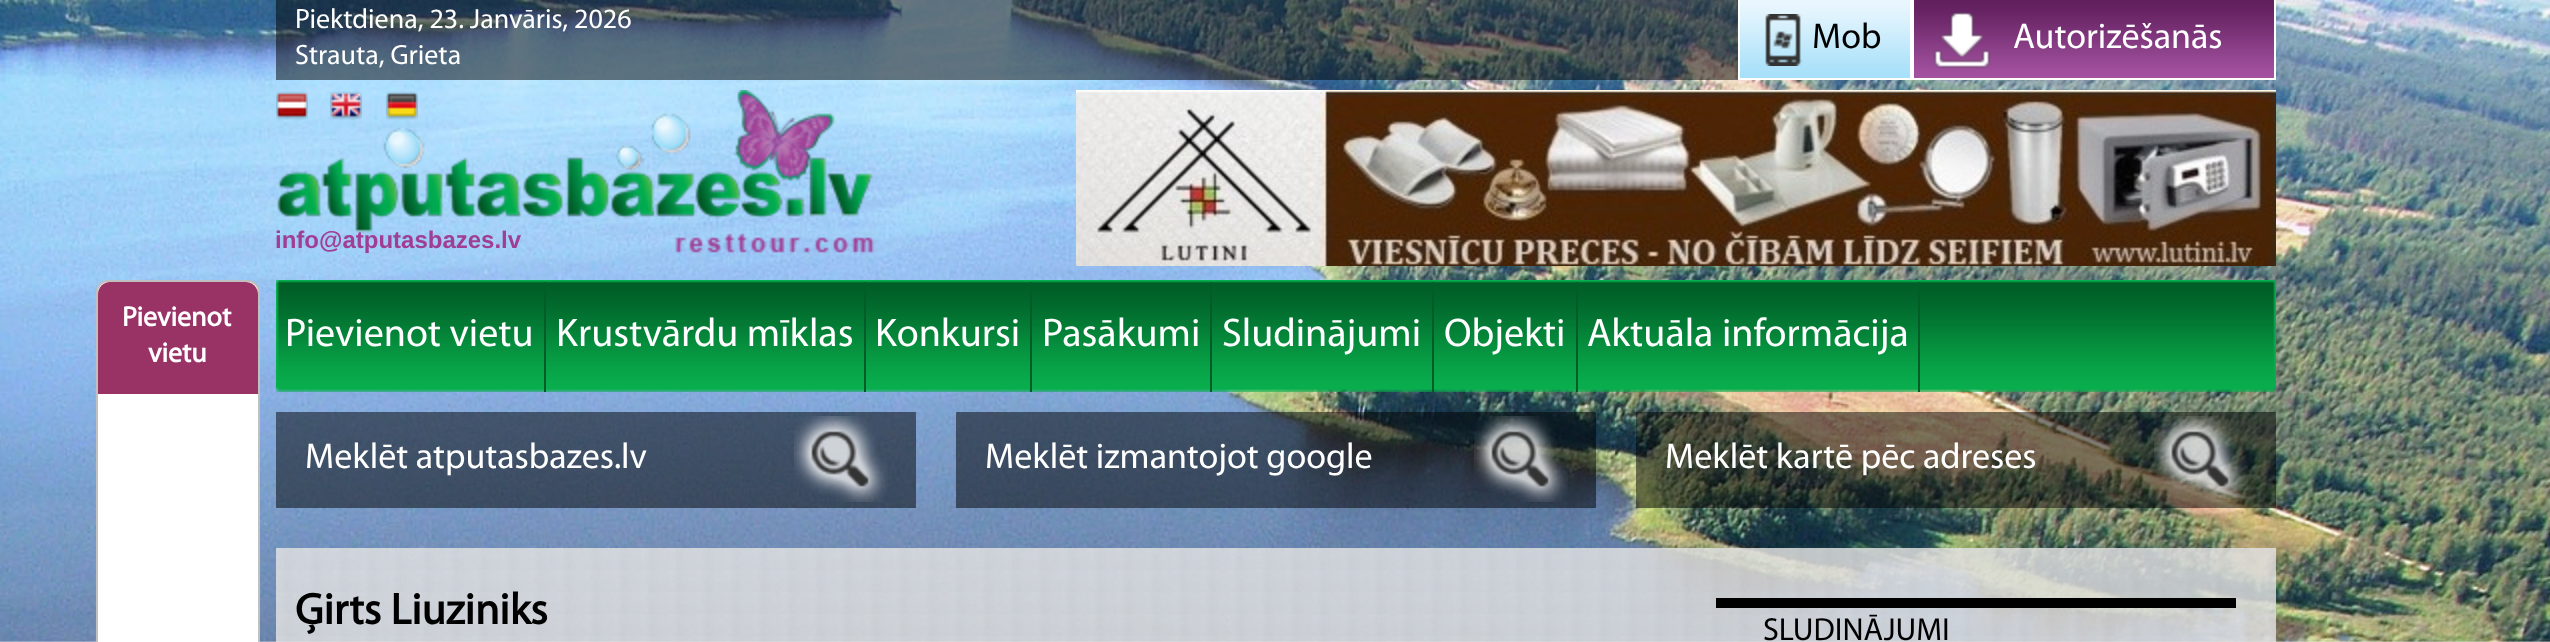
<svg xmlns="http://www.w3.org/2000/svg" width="2550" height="642">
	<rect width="100%" height="100%" fill="#F4F4F4" />
	<image x="0" y="0" width="2550" height="642" href="assets/img1.png" />
	<rect x="276" y="0" width="1462" height="80" fill="#000000" fill-opacity="0.5" />
	<g font-family="Myriad" font-size="28" fill="#FFFFFF">
		<text x="295" y="28">Piektdiena, 23. Janvāris, 2026</text>
		<text x="295" y="64">Strauta, Grieta</text>
	</g>
	<image x="1740" y="0" width="170" height="78" href="assets/img2.png" />
	<rect x="1910" y="0" width="2" height="80" fill="#FFFFFF" />
	<rect x="1738" y="78" width="174" height="2" fill="#FFFFFF" />
	<rect x="1738" y="0" width="2" height="80" fill="#FFFFFF" />
	<image x="1765" y="14" width="38" height="52" href="assets/img3.png" />
	<text x="1812" y="48" font-family="Myriad" font-size="36" fill="#000000">Mob</text>
	<image x="1914" y="0" width="360" height="78" href="assets/img4.png" />
	<rect x="2274" y="0" width="2" height="80" fill="#FFFFFF" />
	<rect x="1912" y="78" width="364" height="2" fill="#FFFFFF" />
	<rect x="1912" y="0" width="2" height="80" fill="#FFFFFF" />
	<image x="1933" y="12" width="58" height="57" href="assets/img5.png" />
	<text x="2013" y="48" font-family="Myriad" font-size="36" fill="#FFFFFF">Autorizēšanās</text>
	<rect x="97" y="281" width="162" height="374" rx="11" fill="#FFFFFF" stroke="#C0C0C0" stroke-width="2" />
	<path d="M110 282H246C252.5 282 258 287.5 258 294V394H98V294C98 287.5 103.5 282 110 282Z" fill="#993366" />
	<g font-family="Myriad" font-size="28" font-weight="700" fill="#FFFFFF">
		<text x="122" y="326">Pievienot</text>
		<text x="148" y="362">vietu</text>
	</g>
	<image x="277" y="90" width="598" height="163" href="assets/img10.png" />
	<image x="276" y="91" width="32" height="29" href="assets/img6.png" />
	<image x="330" y="91" width="32" height="29" href="assets/img7.png" />
	<image x="386" y="91" width="32" height="29" href="assets/img8.png" />
	<image x="1076" y="90" width="1200" height="176" href="assets/img9.png" />
	<text x="275" y="248" font-family="Liberation Sans" font-size="24" font-weight="700" fill="#A03E93">info@atputasbazes.lv</text>
	<image x="276" y="280" width="2000" height="112" href="assets/img11.png" />
	<rect x="544" y="282" width="2" height="110" fill="#005D27" />
	<text x="285" y="346" font-family="Myriad" font-size="40" fill="#FFFFFF">Pievienot vietu</text>
	<rect x="864" y="282" width="2" height="110" fill="#005D27" />
	<text x="556" y="346" font-family="Myriad" font-size="40" fill="#FFFFFF">Krustvārdu mīklas</text>
	<rect x="1030" y="282" width="2" height="110" fill="#005D27" />
	<text x="875" y="346" font-family="Myriad" font-size="40" fill="#FFFFFF">Konkursi</text>
	<rect x="1210" y="282" width="2" height="110" fill="#005D27" />
	<text x="1042" y="346" font-family="Myriad" font-size="40" fill="#FFFFFF">Pasākumi</text>
	<rect x="1432" y="282" width="2" height="110" fill="#005D27" />
	<text x="1222" y="346" font-family="Myriad" font-size="40" fill="#FFFFFF">Sludinājumi</text>
	<rect x="1576" y="282" width="2" height="110" fill="#005D27" />
	<text x="1444" y="346" font-family="Myriad" font-size="40" fill="#FFFFFF">Objekti</text>
	<rect x="1918" y="282" width="2" height="110" fill="#005D27" />
	<text x="1587" y="346" font-family="Myriad" font-size="40" fill="#FFFFFF">Aktuāla informācija</text>
	<rect x="276" y="412" width="640" height="96" fill="#000000" fill-opacity="0.5" />
	<text x="305" y="468" font-family="Myriad" font-size="36" fill="#FFFFFF">Meklēt atputasbazes.lv</text>
	<image x="794" y="416" width="94" height="86" href="assets/img12.png" />
	<rect x="956" y="412" width="640" height="96" fill="#000000" fill-opacity="0.5" />
	<text x="985" y="468" font-family="Myriad" font-size="36" fill="#FFFFFF">Meklēt izmantojot google</text>
	<image x="1474" y="416" width="94" height="86" href="assets/img13.png" />
	<rect x="1636" y="412" width="640" height="96" fill="#000000" fill-opacity="0.5" />
	<text x="1665" y="468" font-family="Myriad" font-size="36" fill="#FFFFFF">Meklēt kartē pēc adreses</text>
	<image x="2154" y="416" width="94" height="86" href="assets/img14.png" />
	<image x="276" y="548" width="2000" height="94" href="assets/img15.png" />
	<text x="295" y="624" font-family="Myriad" font-size="44" font-weight="700" fill="#000000">Ģirts Liuziniks</text>
	<rect x="1716" y="598" width="520" height="10" fill="#000000" />
	<text x="1763" y="640" font-family="Myriad" font-size="32" fill="#000000">SLUDINĀJUMI</text>
</svg>
